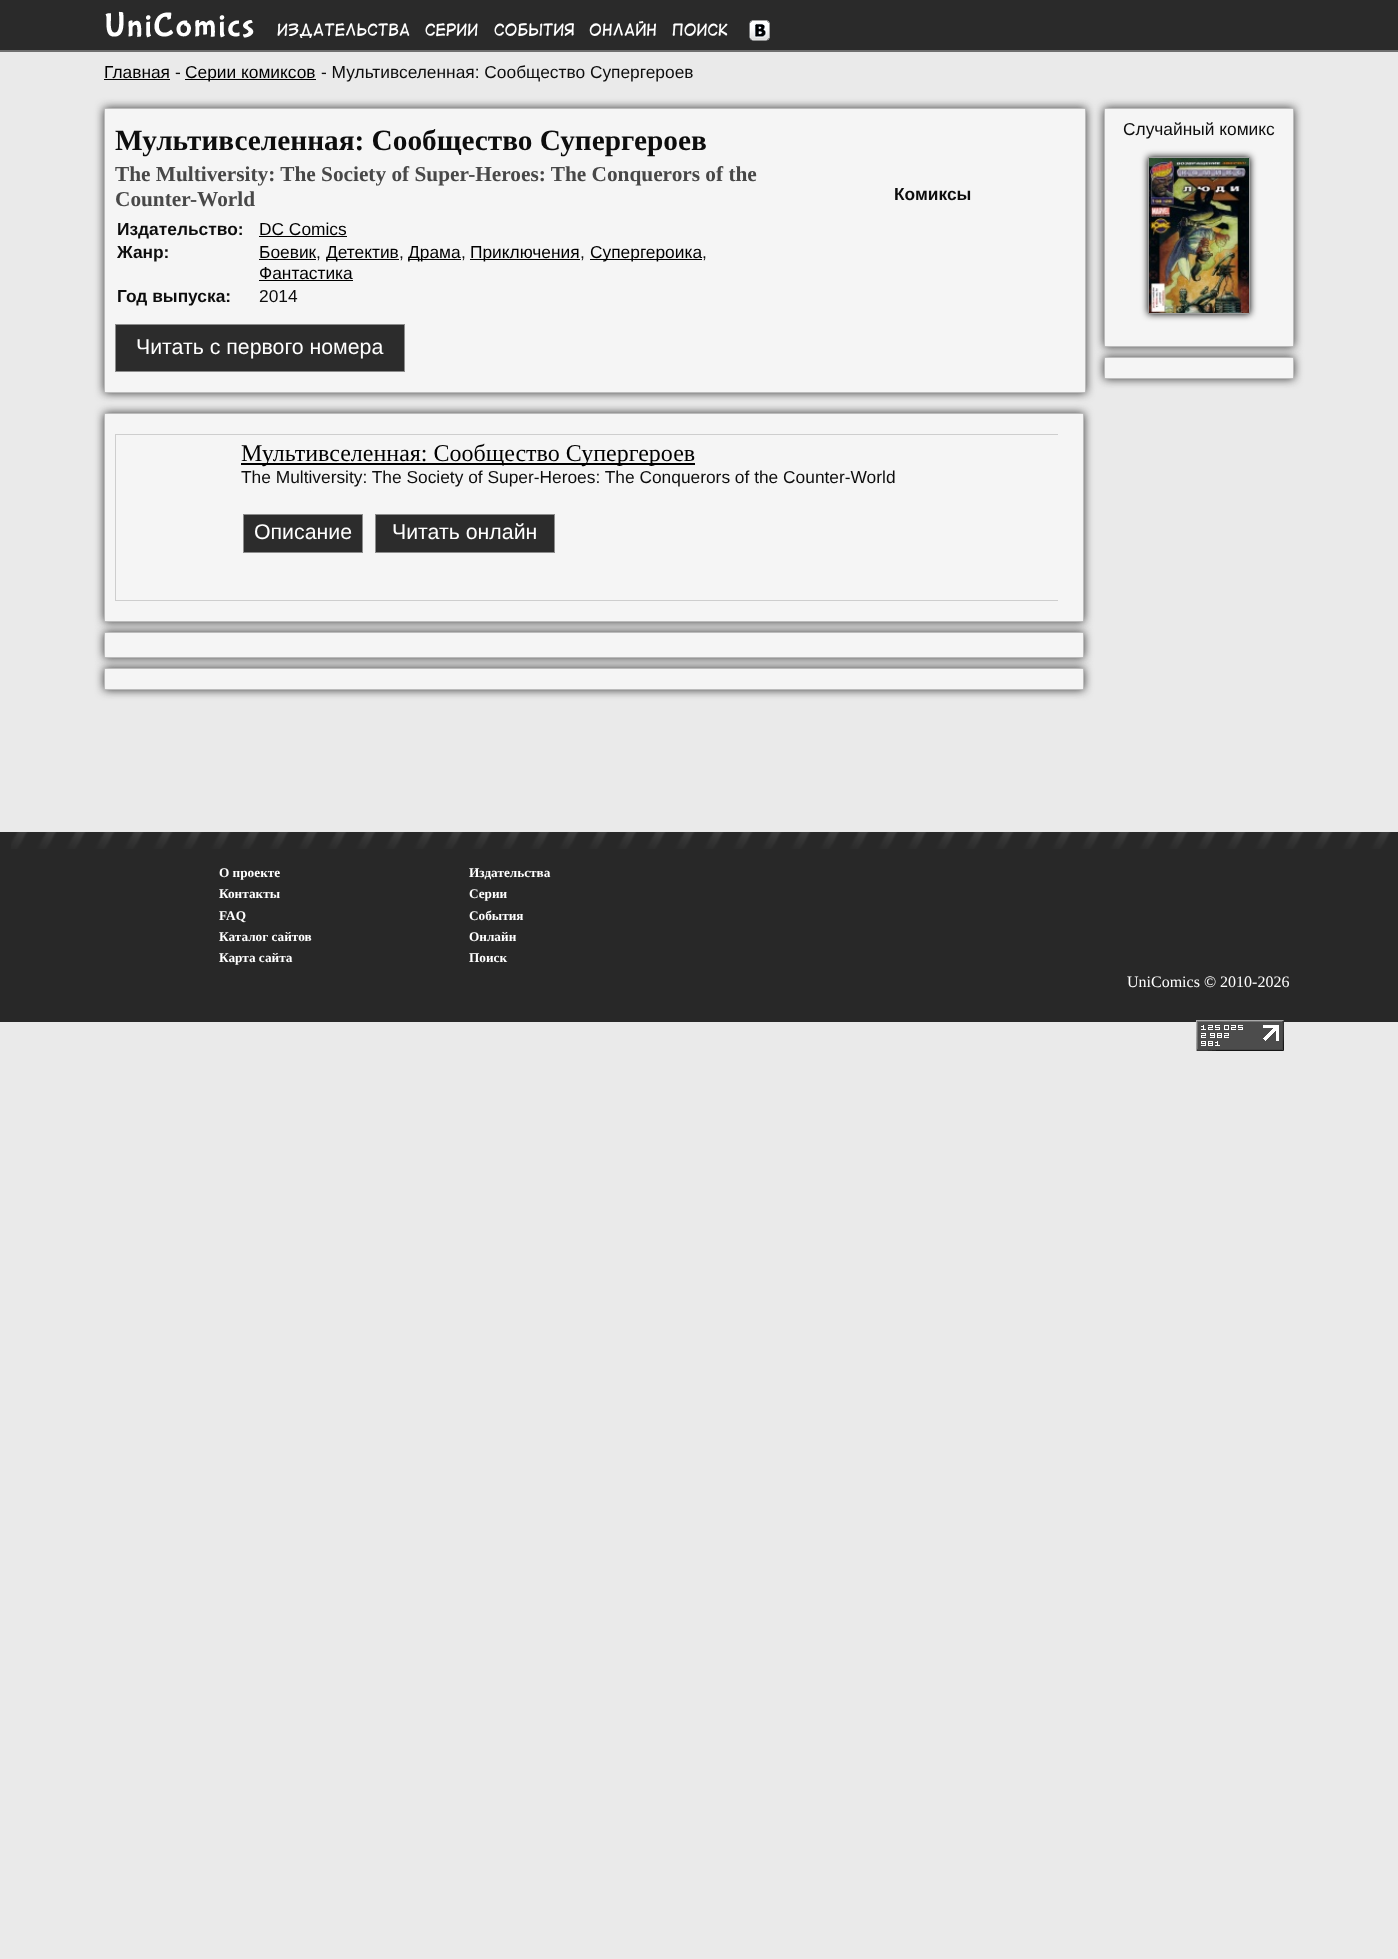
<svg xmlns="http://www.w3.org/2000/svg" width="1398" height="1959">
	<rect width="100%" height="100%" fill="#EAEAEA" />
	<rect x="0" y="0" width="1398" height="50" fill="#2A2A2A" />
	<rect x="0" y="50" width="1398" height="2" fill="#6F6F6F" />
	<image x="105" y="11" width="149" height="27" href="assets/img1.png" />
	<g font-family="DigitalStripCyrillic" font-size="16" font-weight="700" fill="#FFFFFF">
		<text x="277" y="36">Издательства</text>
		<text x="425" y="36">Серии</text>
		<text x="494" y="36">События</text>
		<text x="589" y="36">Онлайн</text>
		<text x="672" y="36">Поиск</text>
	</g>
	<image x="749" y="20" width="21" height="21" href="assets/img2.png" />
	<text x="104" y="78" font-family="Liberation Sans" font-size="17.35" fill="#000000">Главная</text>
	<rect x="104" y="79" width="66" height="1" fill="#000000" />
	<text x="175" y="78" font-family="Liberation Sans" font-size="17.35" fill="#0D0D0D">-</text>
	<rect x="185" y="79" width="131" height="1" fill="#000000" />
	<text x="185" y="78" font-family="Liberation Sans" font-size="17.35" fill="#000000">Серии комиксов</text>
	<text x="321" y="78" font-family="Liberation Sans" font-size="17.35" fill="#0D0D0D">- Мультивселенная: Сообщество Супергероев</text>
	<rect x="104" y="108" width="982" height="285" fill="#373737" filter="blur(5px)" />
	<rect x="104.5" y="108.5" width="981" height="284" fill="#F5F5F5" stroke="#BBBBBB" />
	<text x="115" y="150" font-family="Liberation Serif" font-size="29.3" font-weight="700" fill="#0D0D0D">Мультивселенная: Сообщество Супергероев</text>
	<g font-family="Liberation Serif" font-size="21.3" font-weight="700" fill="#484848">
		<text x="115" y="181">The Multiversity: The Society of Super-Heroes: The Conquerors of the</text>
		<text x="115" y="206">Counter-World</text>
	</g>
	<text x="117" y="235" font-family="Liberation Sans" font-size="17.35" font-weight="700" fill="#0D0D0D">Издательство:</text>
	<text x="259" y="235" font-family="Liberation Sans" font-size="17.35" fill="#000000">DC Comics</text>
	<rect x="259" y="236" width="88" height="1" fill="#000000" />
	<text x="117" y="258" font-family="Liberation Sans" font-size="17.35" font-weight="700" fill="#0D0D0D">Жанр:</text>
	<text x="259" y="258" font-family="Liberation Sans" font-size="17.35" fill="#000000">Боевик</text>
	<rect x="259" y="259" width="57" height="1" fill="#000000" />
	<text x="316" y="258" font-family="Liberation Sans" font-size="17.35" fill="#0D0D0D">,</text>
	<rect x="326" y="259" width="73" height="1" fill="#000000" />
	<text x="326" y="258" font-family="Liberation Sans" font-size="17.35" fill="#000000">Детектив</text>
	<text x="399" y="258" font-family="Liberation Sans" font-size="17.35" fill="#0D0D0D">,</text>
	<rect x="408" y="259" width="53" height="1" fill="#000000" />
	<text x="408" y="258" font-family="Liberation Sans" font-size="17.35" fill="#000000">Драма</text>
	<text x="461" y="258" font-family="Liberation Sans" font-size="17.35" fill="#0D0D0D">,</text>
	<rect x="470" y="259" width="110" height="1" fill="#000000" />
	<text x="470" y="258" font-family="Liberation Sans" font-size="17.35" fill="#000000">Приключения</text>
	<text x="580" y="258" font-family="Liberation Sans" font-size="17.35" fill="#0D0D0D">,</text>
	<rect x="590" y="259" width="112" height="1" fill="#000000" />
	<text x="590" y="258" font-family="Liberation Sans" font-size="17.35" fill="#000000">Супергероика</text>
	<text x="702" y="258" font-family="Liberation Sans" font-size="17.35" fill="#0D0D0D">,</text>
	<text x="259" y="279" font-family="Liberation Sans" font-size="17.35" fill="#000000">Фантастика</text>
	<rect x="259" y="280" width="94" height="1" fill="#000000" />
	<text x="117" y="302" font-family="Liberation Sans" font-size="17.35" font-weight="700" fill="#0D0D0D">Год выпуска:</text>
	<text x="259" y="302" font-family="Liberation Sans" font-size="17.35" fill="#0D0D0D">2014</text>
	<rect x="115.5" y="324.5" width="289" height="47" fill="#2C2C2C" stroke="#8C8C8C" />
	<text x="136" y="354" font-family="Liberation Sans" font-size="21.3" fill="#FFFFFF">Читать с первого номера</text>
	<text x="894" y="200" font-family="Liberation Sans" font-size="17.35" font-weight="700" fill="#0D0D0D">Комиксы</text>
	<rect x="104" y="413" width="980" height="209" fill="#373737" filter="blur(5px)" />
	<rect x="104.5" y="413.5" width="979" height="208" fill="#F5F5F5" stroke="#BBBBBB" />
	<rect x="115" y="434" width="943" height="1" fill="#CECECE" />
	<rect x="115" y="600" width="943" height="1" fill="#CECECE" />
	<rect x="115" y="434" width="1" height="167" fill="#CECECE" />
	<rect x="241" y="463" width="454" height="2" fill="#000000" />
	<text x="241" y="461" font-family="Liberation Serif" font-size="24" fill="#000000">Мультивселенная: Сообщество Супергероев</text>
	<text x="241" y="483" font-family="Liberation Sans" font-size="17.35" fill="#0D0D0D">The Multiversity: The Society of Super-Heroes: The Conquerors of the Counter-World</text>
	<rect x="243.5" y="514.5" width="119" height="38" fill="#2C2C2C" stroke="#8C8C8C" />
	<text x="254" y="539" font-family="Liberation Sans" font-size="21.3" fill="#FFFFFF">Описание</text>
	<rect x="375.5" y="514.5" width="179" height="38" fill="#2C2C2C" stroke="#8C8C8C" />
	<text x="392" y="539" font-family="Liberation Sans" font-size="21.3" fill="#FFFFFF">Читать онлайн</text>
	<rect x="104" y="632" width="980" height="26" fill="#373737" filter="blur(5px)" />
	<rect x="104.5" y="632.5" width="979" height="25" fill="#F5F5F5" stroke="#BBBBBB" />
	<rect x="104" y="668" width="980" height="22" fill="#373737" filter="blur(5px)" />
	<rect x="104.5" y="668.5" width="979" height="21" fill="#F5F5F5" stroke="#BBBBBB" />
	<rect x="1104" y="108" width="190" height="239" fill="#373737" filter="blur(5px)" />
	<rect x="1104.5" y="108.5" width="189" height="238" fill="#F5F5F5" stroke="#BBBBBB" />
	<text x="1123" y="135" font-family="Liberation Sans" font-size="17.35" fill="#0D0D0D">Случайный комикс</text>
	<rect x="1148" y="157" width="102" height="157" fill="#000000" filter="blur(3.5px)" />
	<rect x="1148.5" y="157.5" width="101" height="156" fill="none" stroke="#9D9D9D" />
	<image x="1149" y="158" width="100" height="155" href="assets/img3.png" />
	<rect x="1104" y="357" width="190" height="22" fill="#373737" filter="blur(5px)" />
	<rect x="1104.5" y="357.5" width="189" height="21" fill="#F5F5F5" stroke="#BBBBBB" />
	<rect x="0" y="832" width="1398" height="190" fill="#282828" />
	<image x="11" y="832" width="1380" height="17" href="assets/img4.png" />
	<g font-family="Liberation Serif" font-size="13.25" font-weight="700" fill="#FFFFFF">
		<text x="219" y="877">О проекте</text>
		<text x="219" y="898">Контакты</text>
		<text x="219" y="920">FAQ</text>
		<text x="219" y="941">Каталог сайтов</text>
		<text x="219" y="962">Карта сайта</text>
		<text x="469" y="877">Издательства</text>
		<text x="469" y="898">Серии</text>
		<text x="469" y="920">События</text>
		<text x="469" y="941">Онлайн</text>
		<text x="469" y="962">Поиск</text>
	</g>
	<text x="1127" y="987" font-family="Liberation Serif" font-size="16" fill="#FFFFFF">UniComics © 2010-2026</text>
	<image x="1196" y="1020" width="88" height="31" href="assets/img5.png" />
</svg>
